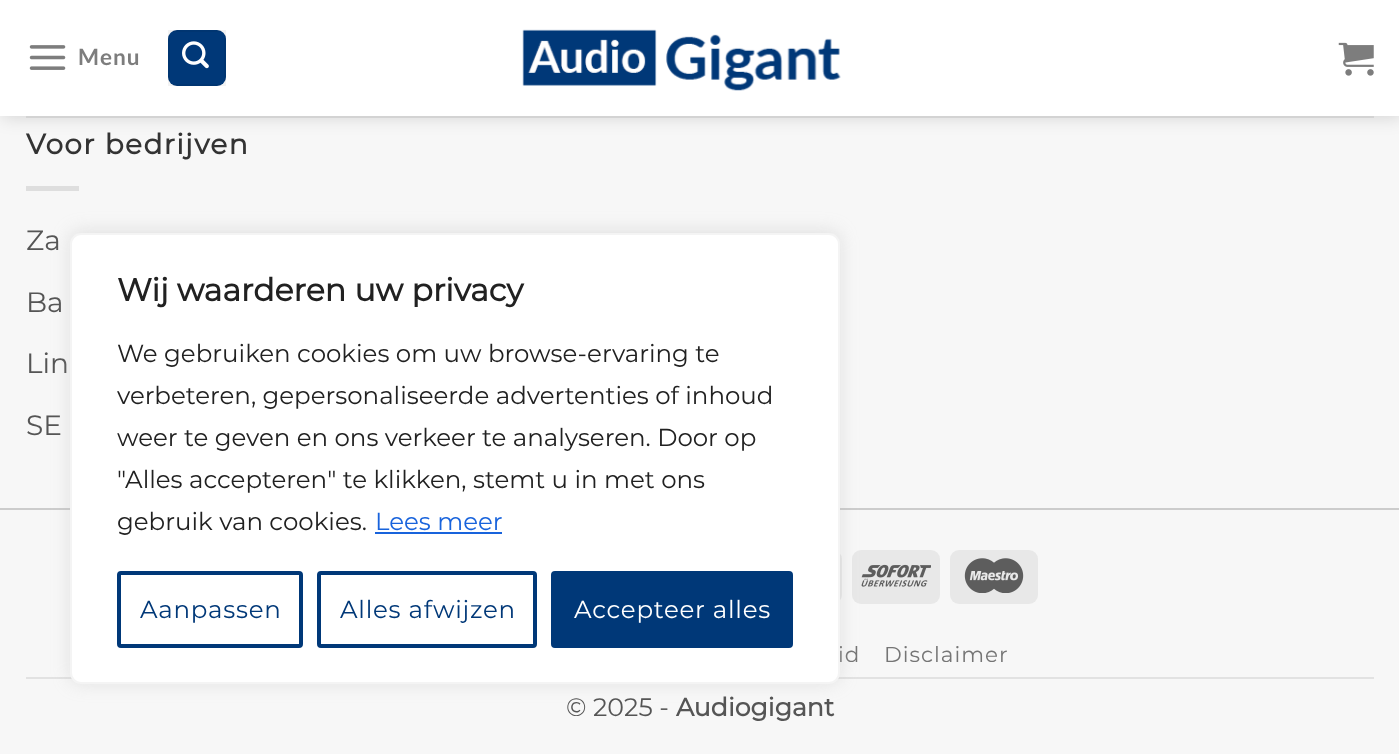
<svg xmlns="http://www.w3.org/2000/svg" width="1399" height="754">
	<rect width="100%" height="100%" fill="#F7F7F7" />
	<rect x="2" y="2" width="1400" height="115" fill="#000000" fill-opacity="0.15" filter="blur(9px)" />
	<rect x="0" y="0" width="1399" height="116" fill="#FFFFFF" />
	<image x="29" y="45" width="37" height="25" href="assets/img1.png" />
	<text x="78" y="65" font-family="Lato" font-size="22.5" font-weight="700" letter-spacing="1" fill="#7D7D7D">Menu</text>
	<rect x="168" y="30" width="58" height="56" rx="9" fill="#003878" />
	<rect x="169" y="31" width="56" height="54" fill="none" stroke="#000000" stroke-opacity="0.05" stroke-width="2" />
	<image x="182" y="41" width="27" height="28" href="assets/img2.png" />
	<image x="522" y="29" width="319" height="62" href="assets/img3.png" />
	<image x="1338" y="42" width="36" height="34" href="assets/img4.png" />
	<rect x="26" y="116" width="1348" height="2" fill="#D3D3D3" />
	<text x="26" y="154" font-family="Montserrat" font-size="28" font-weight="700" letter-spacing="1.4" fill="#333333">Voor bedrijven</text>
	<rect x="26" y="186" width="53" height="5" fill="#DEDEDE" />
	<g font-family="Montserrat" font-size="28" fill="#555555">
		<text x="26" y="250">Za</text>
		<text x="26" y="312">Ba</text>
		<text x="26" y="373">Lin</text>
		<text x="26" y="435">SE</text>
	</g>
	<rect x="0" y="508" width="1399" height="2" fill="#CCCCCC" />
	<rect x="754" y="550" width="88" height="54" rx="9" fill="#E8E8E8" />
	<rect x="852" y="550" width="88" height="54" rx="9" fill="#E8E8E8" />
	<image x="861" y="564" width="70" height="23" href="assets/img5.png" />
	<rect x="950" y="550" width="88" height="54" rx="9" fill="#E8E8E8" />
	<image x="964" y="558" width="60" height="35" href="assets/img6.png" />
	<rect x="26" y="677" width="1348" height="2" fill="#E2E2E2" />
	<g font-family="Montserrat" font-size="21.5" letter-spacing="1" fill="#757575">
		<text x="838" y="662">id</text>
		<text x="884" y="662">Disclaimer</text>
	</g>
	<text x="566" y="716" font-family="Montserrat" font-size="25.25" fill="#555555">© 2025 -</text>
	<text x="676" y="716" font-family="Montserrat" font-size="25.25" font-weight="700" fill="#555555">Audiogigant</text>
	<rect x="70" y="231" width="770" height="452" rx="11" fill="#ACABAB" fill-opacity="0.3" filter="blur(9px)" />
	<rect x="71" y="234" width="768" height="449" rx="10" fill="#FFFFFF" stroke="#F4F4F4" stroke-width="2" />
	<text x="117" y="301" font-family="Montserrat" font-size="31.5" font-weight="700" fill="#212121">Wij waarderen uw privacy</text>
	<g font-family="Montserrat" font-size="24.5" fill="#212121">
		<text x="117" y="362">We gebruiken cookies om uw browse-ervaring te</text>
		<text x="117" y="404">verbeteren, gepersonaliseerde advertenties of inhoud</text>
		<text x="117" y="446">weer te geven en ons verkeer te analyseren. Door op</text>
		<text x="117" y="488">"Alles accepteren" te klikken, stemt u in met ons</text>
		<text x="117" y="530">gebruik van cookies.</text>
	</g>
	<text x="375" y="530" font-family="Montserrat" font-size="24.5" fill="#1863DC">Lees meer</text>
	<rect x="375" y="532" width="127" height="2" fill="#1863DC" />
	<rect x="119" y="573" width="182" height="73" rx="2" fill="none" stroke="#003878" stroke-width="4" />
	<text x="140" y="618" font-family="Montserrat" font-size="24.5" letter-spacing="0.75" fill="#003878">Aanpassen</text>
	<rect x="319" y="573" width="216" height="73" rx="2" fill="none" stroke="#003878" stroke-width="4" />
	<text x="340" y="618" font-family="Montserrat" font-size="24.5" letter-spacing="0.75" fill="#003878">Alles afwijzen</text>
	<rect x="553" y="573" width="238" height="73" rx="2" fill="#003878" stroke="#003878" stroke-width="4" />
	<text x="574" y="618" font-family="Montserrat" font-size="24.5" letter-spacing="0.75" fill="#FFFFFF">Accepteer alles</text>
</svg>
